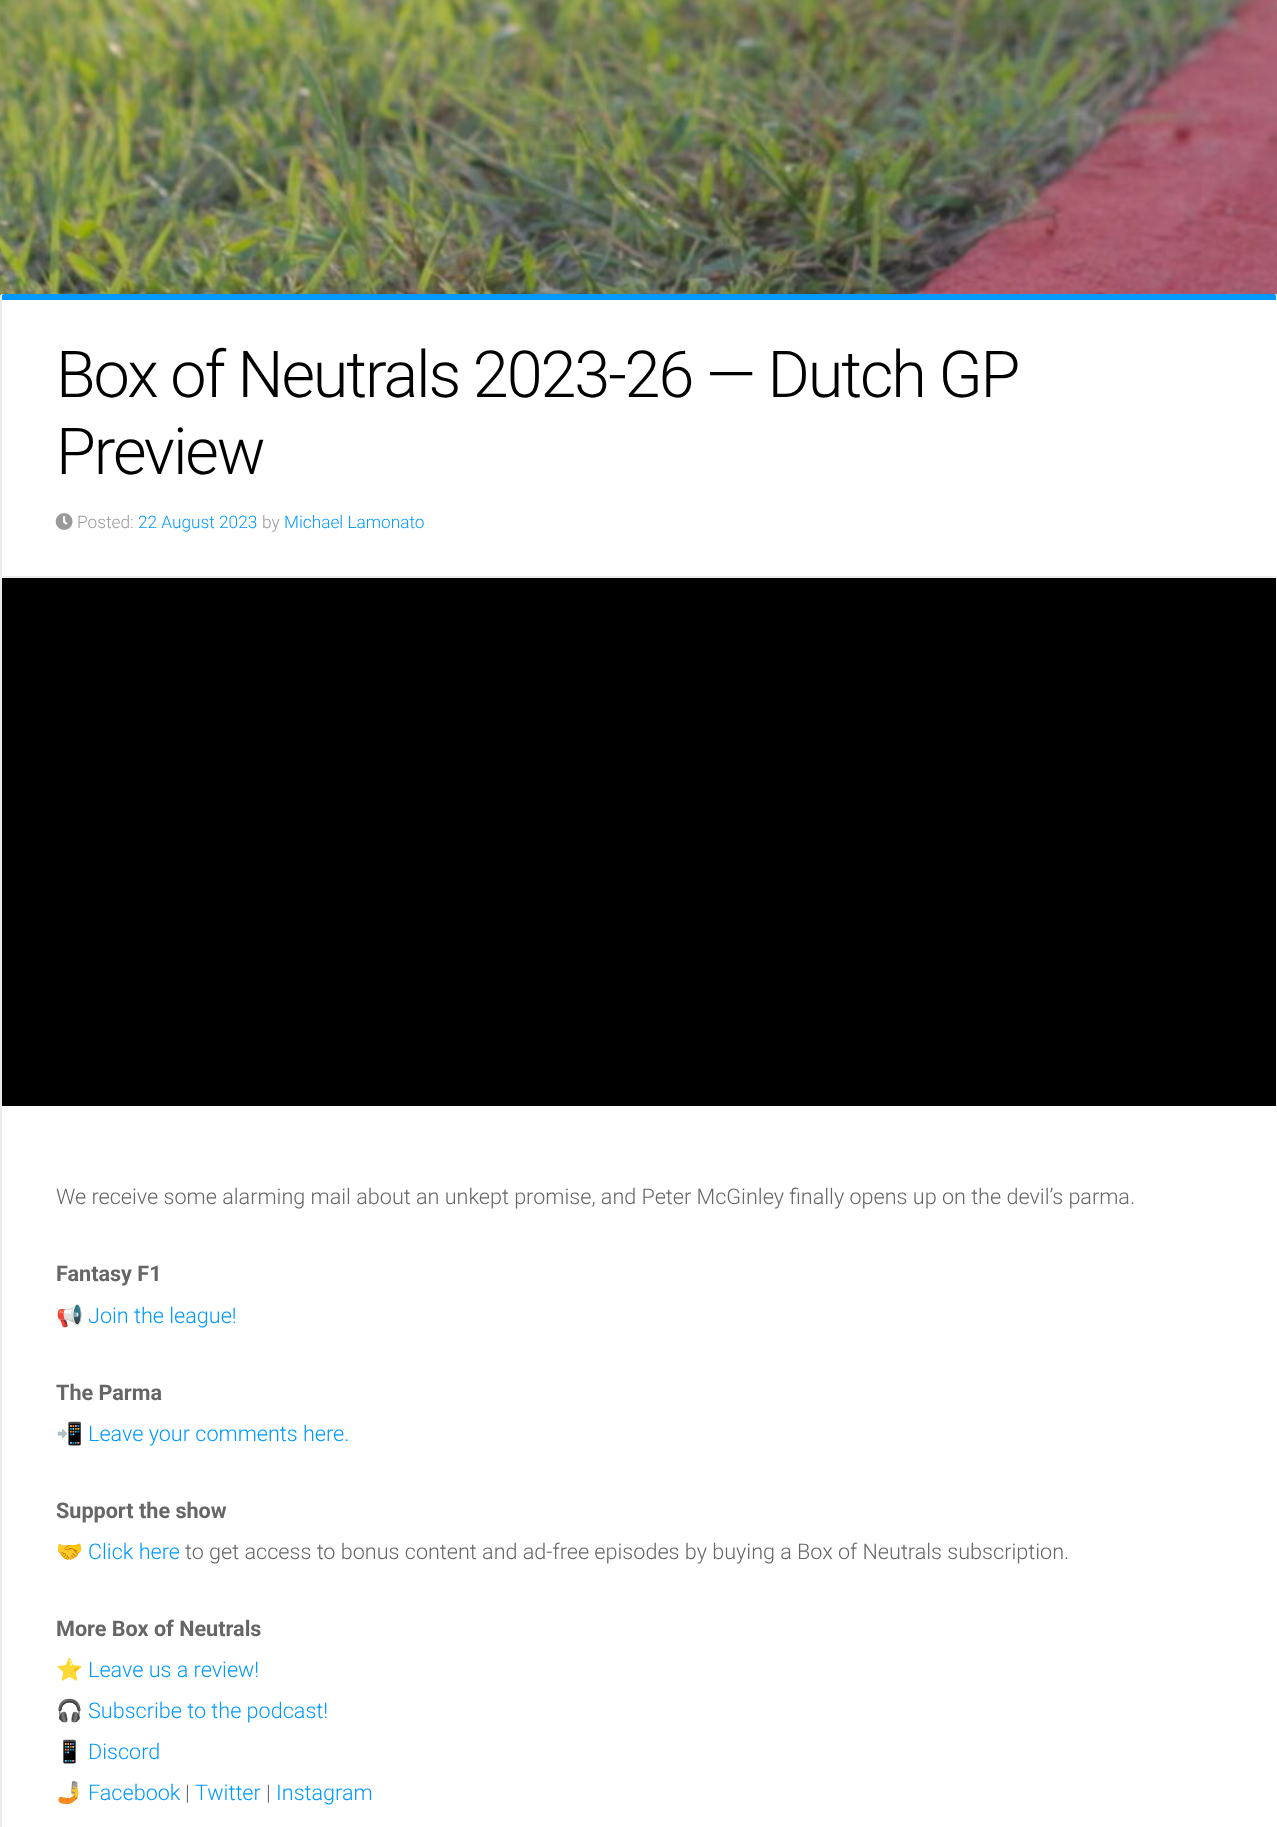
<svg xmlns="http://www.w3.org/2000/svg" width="1277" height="1827">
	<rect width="100%" height="100%" fill="#FFFFFF" />
	<image x="0" y="0" width="1277" height="297" href="assets/img1.png" />
	<rect x="0" y="294" width="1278" height="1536" rx="3" fill="#FFFFFF" />
	<rect x="0" y="296" width="2" height="1531" fill="#000000" fill-opacity="0.08" />
	<path d="M5 294H1274C1276 294 1276 295 1276 297V577C1276 577 1275 578 1274 578H5C3 578 2 577 2 575V297C2 295 3 294 5 294Z" fill="#FFFFFF" />
	<path d="M4 294C1 294 2 299 2 300H1276C1276 299 1277 294 1274 294Z" fill="#0099FF" />
	<path d="M3 578L2 574C2 575 3 576 4 576H1274C1275 576 1276 575 1276 574L1275 578Z" fill="#EBEBEB" />
	<g font-family="Roboto" font-size="64.75" font-weight="300" letter-spacing="-2.1" fill="#000000">
		<text x="56" y="397">Box of Neutrals 2023-26 — Dutch GP</text>
		<text x="56" y="474">Preview</text>
	</g>
	<image x="55" y="513" width="18" height="17" href="assets/img2.png" />
	<text x="77" y="528" font-family="Roboto" font-size="17.25" font-weight="300" fill="#999999">Posted:</text>
	<text x="138" y="528" font-family="Roboto" font-size="17.25" font-weight="300" fill="#0099FF">22 August 2023</text>
	<text x="262" y="528" font-family="Roboto" font-size="17.25" font-weight="300" fill="#999999">by</text>
	<text x="284" y="528" font-family="Roboto" font-size="17.25" font-weight="300" fill="#0099FF">Michael Lamonato</text>
	<rect x="2" y="578" width="1274" height="528" fill="#000000" />
	<text x="56" y="1204" font-family="Roboto" font-size="21.6" font-weight="300" fill="#666666">We receive some alarming mail about an unkept promise, and Peter McGinley finally opens up on the devil’s parma.</text>
	<text x="56" y="1281" font-family="Roboto" font-size="21.6" font-weight="700" fill="#666666">Fantasy F1</text>
	<text x="56" y="1323" font-family="Noto Color Emoji" font-size="21.6" fill="#666666">📢</text>
	<text x="88" y="1323" font-family="Roboto" font-size="21.6" font-weight="300" fill="#0099FF">Join the league!</text>
	<text x="56" y="1400" font-family="Roboto" font-size="21.6" font-weight="700" fill="#666666">The Parma</text>
	<text x="56" y="1441" font-family="Noto Color Emoji" font-size="21.6" fill="#666666">📲</text>
	<text x="88" y="1441" font-family="Roboto" font-size="21.6" font-weight="300" fill="#0099FF">Leave your comments here.</text>
	<text x="56" y="1518" font-family="Roboto" font-size="21.6" font-weight="700" fill="#666666">Support the show</text>
	<text x="56" y="1559" font-family="Noto Color Emoji" font-size="21.6" fill="#666666">🤝</text>
	<text x="88" y="1559" font-family="Roboto" font-size="21.6" font-weight="300" fill="#0099FF">Click here</text>
	<text x="185" y="1559" font-family="Roboto" font-size="21.6" font-weight="300" fill="#666666">to get access to bonus content and ad-free episodes by buying a Box of Neutrals subscription.</text>
	<text x="56" y="1636" font-family="Roboto" font-size="21.6" font-weight="700" fill="#666666">More Box of Neutrals</text>
	<text x="56" y="1677" font-family="Noto Color Emoji" font-size="21.6" fill="#666666">⭐</text>
	<text x="88" y="1677" font-family="Roboto" font-size="21.6" font-weight="300" fill="#0099FF">Leave us a review!</text>
	<text x="56" y="1718" font-family="Noto Color Emoji" font-size="21.6" fill="#666666">🎧</text>
	<text x="88" y="1718" font-family="Roboto" font-size="21.6" font-weight="300" fill="#0099FF">Subscribe to the podcast!</text>
	<text x="56" y="1759" font-family="Noto Color Emoji" font-size="21.6" fill="#666666">📱</text>
	<text x="88" y="1759" font-family="Roboto" font-size="21.6" font-weight="300" fill="#0099FF">Discord</text>
	<text x="56" y="1800" font-family="Noto Color Emoji" font-size="21.6" fill="#666666">🤳</text>
	<text x="88" y="1800" font-family="Roboto" font-size="21.6" font-weight="300" fill="#0099FF">Facebook</text>
	<text x="185" y="1800" font-family="Roboto" font-size="21.6" font-weight="300" fill="#666666">|</text>
	<text x="195" y="1800" font-family="Roboto" font-size="21.6" font-weight="300" fill="#0099FF">Twitter</text>
	<text x="266" y="1800" font-family="Roboto" font-size="21.6" font-weight="300" fill="#666666">|</text>
	<text x="276" y="1800" font-family="Roboto" font-size="21.6" font-weight="300" fill="#0099FF">Instagram</text>
</svg>
